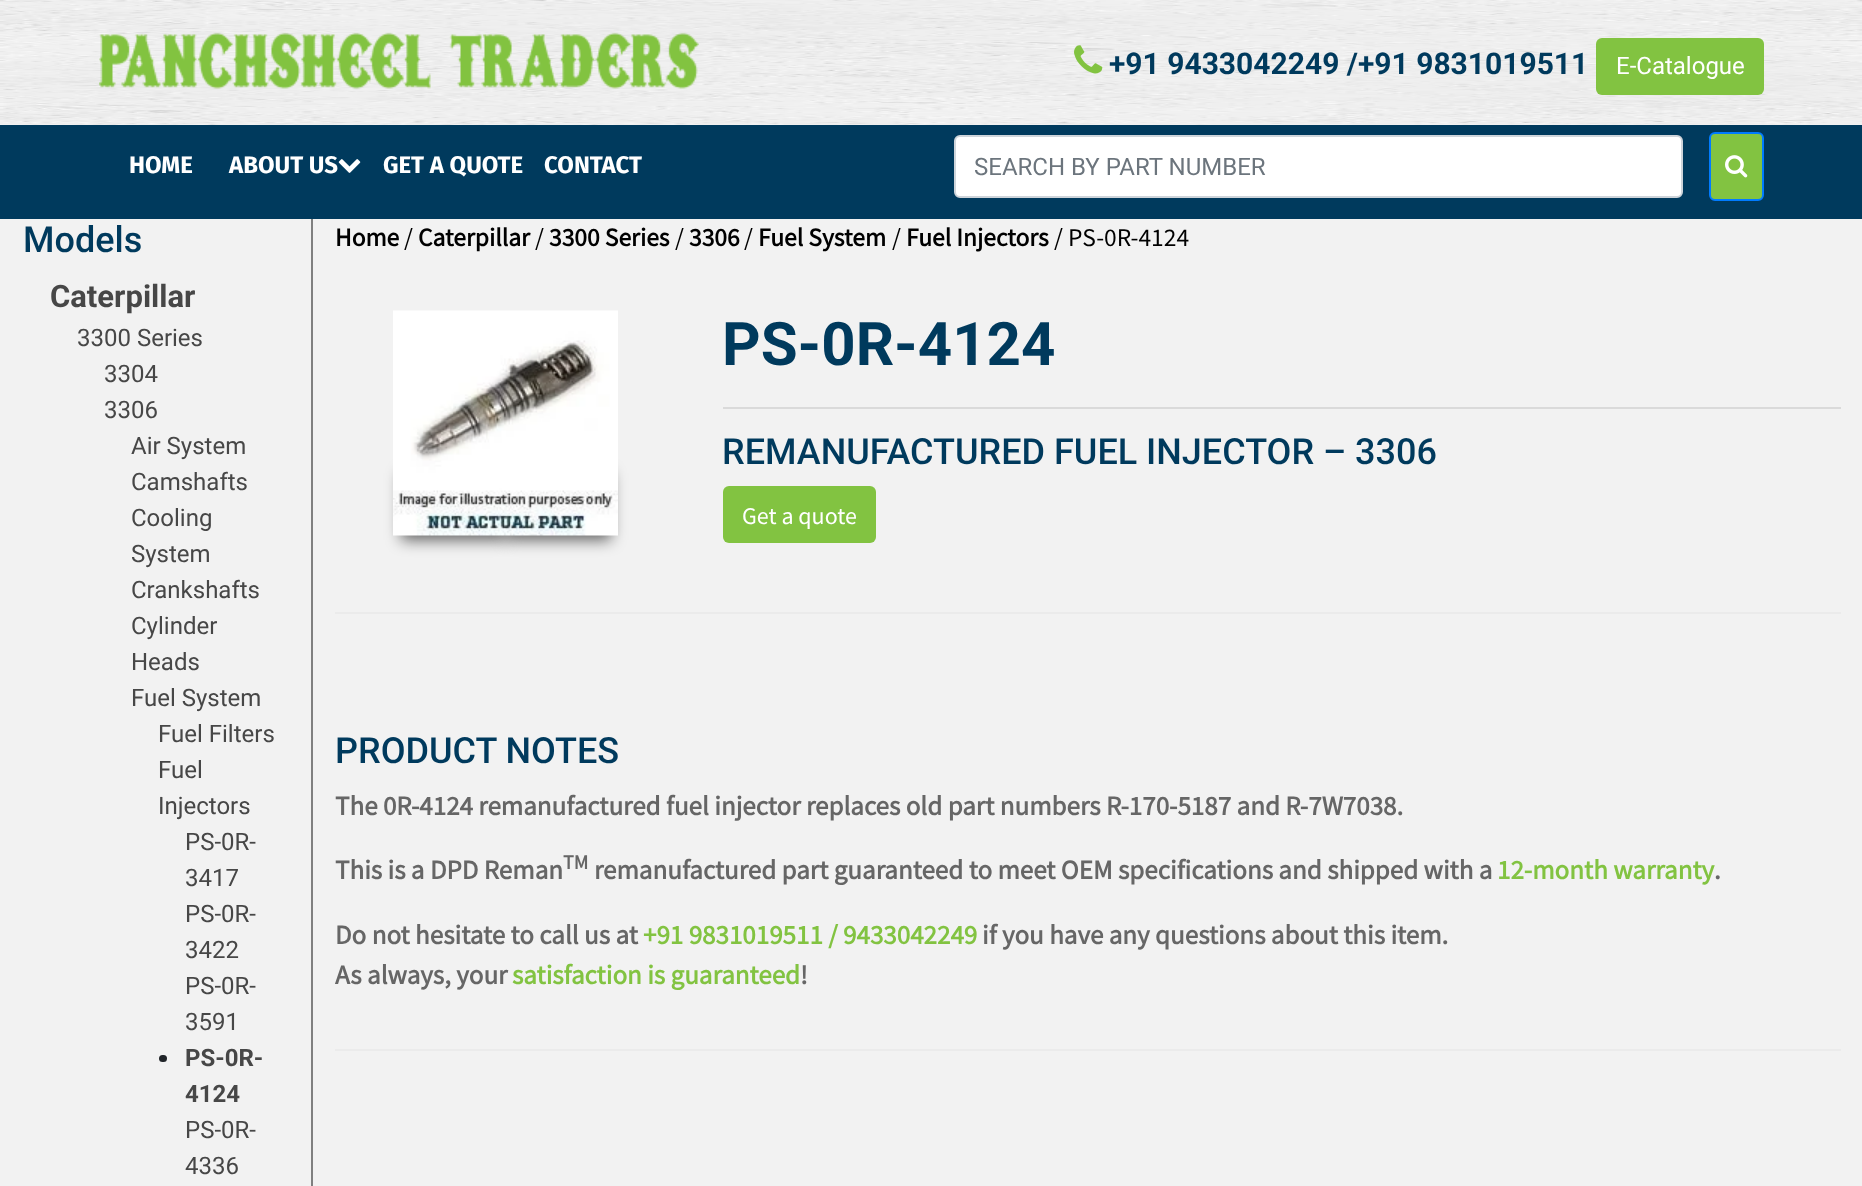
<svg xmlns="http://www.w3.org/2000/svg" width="1862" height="1186">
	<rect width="100%" height="100%" fill="#F2F2F2" />
	<image x="0" y="0" width="1862" height="125" href="assets/img1.png" />
	<image x="99" y="32" width="600" height="57" href="assets/img2.png" />
	<image x="1074" y="45" width="29" height="29" href="assets/img3.png" />
	<text x="1109" y="74" font-family="Roboto" font-size="30" font-weight="700" fill="#003A5D">+91 9433042249 /+91 9831019511</text>
	<rect x="1596" y="38" width="168" height="57" rx="6" fill="#82C341" />
	<text x="1616" y="74" font-family="Roboto" font-size="24" fill="#FFFFFF">E-Catalogue</text>
	<rect x="0" y="125" width="1862" height="94" fill="#003A5D" />
	<g font-family="Fira Sans" font-size="24" font-weight="700" fill="#FFFFFF">
		<text x="129" y="173">HOME</text>
		<text x="229" y="173">ABOUT US</text>
	</g>
	<image x="338" y="159" width="23" height="14" href="assets/img4.png" />
	<g font-family="Fira Sans" font-size="24" font-weight="700" fill="#FFFFFF">
		<text x="383" y="173">GET A QUOTE</text>
		<text x="544" y="173">CONTACT</text>
	</g>
	<rect x="955" y="136" width="727" height="61" rx="5" fill="#FFFFFF" stroke="#CED4DA" stroke-width="2" />
	<text x="974" y="175" font-family="Roboto" font-size="24" fill="#6C757D">SEARCH BY PART NUMBER</text>
	<rect x="1710" y="133" width="53" height="67" rx="5" fill="#82C341" stroke="#007BFF" stroke-width="2" />
	<image x="1725" y="155" width="23" height="23" href="assets/img5.png" />
	<text x="23" y="252" font-family="Roboto" font-size="36" font-weight="500" fill="#003A5D">Models</text>
	<text x="50" y="307" font-family="Roboto" font-size="31" font-weight="700" fill="#474747">Caterpillar</text>
	<g font-family="Roboto" font-size="24" fill="#474747">
		<text x="77" y="346">3300 Series</text>
		<text x="104" y="382">3304</text>
		<text x="104" y="418">3306</text>
		<text x="131" y="454">Air System</text>
		<text x="131" y="490">Camshafts</text>
		<text x="131" y="526">Cooling</text>
		<text x="131" y="562">System</text>
		<text x="131" y="598">Crankshafts</text>
		<text x="131" y="634">Cylinder</text>
		<text x="131" y="670">Heads</text>
		<text x="131" y="706">Fuel System</text>
		<text x="158" y="742">Fuel Filters</text>
		<text x="158" y="778">Fuel</text>
		<text x="158" y="814">Injectors</text>
		<text x="185" y="850">PS-0R-</text>
		<text x="185" y="886">3417</text>
		<text x="185" y="922">PS-0R-</text>
		<text x="185" y="958">3422</text>
		<text x="185" y="994">PS-0R-</text>
		<text x="185" y="1030">3591</text>
	</g>
	<rect x="159" y="1055" width="8" height="7" rx="3.5" fill="#212529" />
	<g font-family="Roboto" font-size="24" font-weight="700" fill="#474747">
		<text x="185" y="1066">PS-0R-</text>
		<text x="185" y="1102">4124</text>
	</g>
	<g font-family="Roboto" font-size="24" fill="#474747">
		<text x="185" y="1138">PS-0R-</text>
		<text x="185" y="1174">4336</text>
	</g>
	<rect x="311" y="219" width="2" height="967" fill="#808080" />
	<text x="335" y="246" font-family="Source Sans Pro" font-size="25.5" font-weight="700" fill="#000000">Home</text>
	<text x="404" y="246" font-family="Source Sans Pro" font-size="25.5" fill="#000000">/</text>
	<text x="418" y="246" font-family="Source Sans Pro" font-size="25.5" font-weight="700" fill="#000000">Caterpillar</text>
	<text x="535" y="246" font-family="Source Sans Pro" font-size="25.5" fill="#000000">/</text>
	<text x="549" y="246" font-family="Source Sans Pro" font-size="25.5" font-weight="700" fill="#000000">3300 Series</text>
	<text x="675" y="246" font-family="Source Sans Pro" font-size="25.5" fill="#000000">/</text>
	<text x="689" y="246" font-family="Source Sans Pro" font-size="25.5" font-weight="700" fill="#000000">3306</text>
	<text x="744" y="246" font-family="Source Sans Pro" font-size="25.5" fill="#000000">/</text>
	<text x="758" y="246" font-family="Source Sans Pro" font-size="25.5" font-weight="700" fill="#000000">Fuel System</text>
	<text x="892" y="246" font-family="Source Sans Pro" font-size="25.5" fill="#000000">/</text>
	<text x="906" y="246" font-family="Source Sans Pro" font-size="25.5" font-weight="700" fill="#000000">Fuel Injectors</text>
	<text x="1054" y="246" font-family="Source Sans Pro" font-size="25.5" fill="#000000">/ PS-0R-4124</text>
	<rect x="401" y="473" width="105" height="67" fill="#000000" fill-opacity="0.6" filter="blur(7.5px)" />
	<rect x="506" y="473" width="105" height="67" fill="#000000" fill-opacity="0.6" filter="blur(7.5px)" />
	<image x="393" y="310" width="225" height="226" href="assets/img6.png" />
	<text x="722" y="365" font-family="Roboto" font-size="60" font-weight="700" fill="#003A5D">PS-0R-4124</text>
	<rect x="723" y="407" width="1118" height="2" fill="#DADADA" />
	<text x="722" y="464" font-family="Roboto" font-size="36" font-weight="500" fill="#003A5D">REMANUFACTURED FUEL INJECTOR – 3306</text>
	<rect x="723" y="486" width="153" height="57" rx="6" fill="#82C341" />
	<text x="742" y="524" font-family="Source Sans Pro" font-size="24" fill="#FFFFFF">Get a quote</text>
	<rect x="335" y="612" width="1506" height="2" fill="#EBEBEB" />
	<text x="335" y="763" font-family="Roboto" font-size="36" font-weight="500" fill="#003A5D">PRODUCT NOTES</text>
	<g font-family="Source Sans Pro" font-size="27" font-weight="700" fill="#666666">
		<text x="335" y="815">The 0R-4124 remanufactured fuel injector replaces old part numbers R-170-5187 and R-7W7038.</text>
		<text x="335" y="879">This is a DPD Reman</text>
	</g>
	<text x="563" y="869" font-family="Source Sans Pro" font-size="20" font-weight="700" fill="#666666">TM</text>
	<text x="594" y="879" font-family="Source Sans Pro" font-size="27" font-weight="700" fill="#666666">remanufactured part guaranteed to meet OEM specifications and shipped with a</text>
	<text x="1497" y="879" font-family="Source Sans Pro" font-size="27" font-weight="700" fill="#82C341">12-month warranty</text>
	<g font-family="Source Sans Pro" font-size="27" font-weight="700" fill="#666666">
		<text x="1714" y="879">.</text>
		<text x="335" y="944">Do not hesitate to call us at</text>
	</g>
	<text x="643" y="944" font-family="Source Sans Pro" font-size="27" font-weight="700" fill="#82C341">+91 9831019511 / 9433042249</text>
	<g font-family="Source Sans Pro" font-size="27" font-weight="700" fill="#666666">
		<text x="982" y="944">if you have any questions about this item.</text>
		<text x="335" y="984">As always, your</text>
	</g>
	<text x="512" y="984" font-family="Source Sans Pro" font-size="27" font-weight="700" fill="#82C341">satisfaction is guaranteed</text>
	<text x="800" y="984" font-family="Source Sans Pro" font-size="27" font-weight="700" fill="#666666">!</text>
	<rect x="335" y="1049" width="1506" height="2" fill="#EBEBEB" />
</svg>
